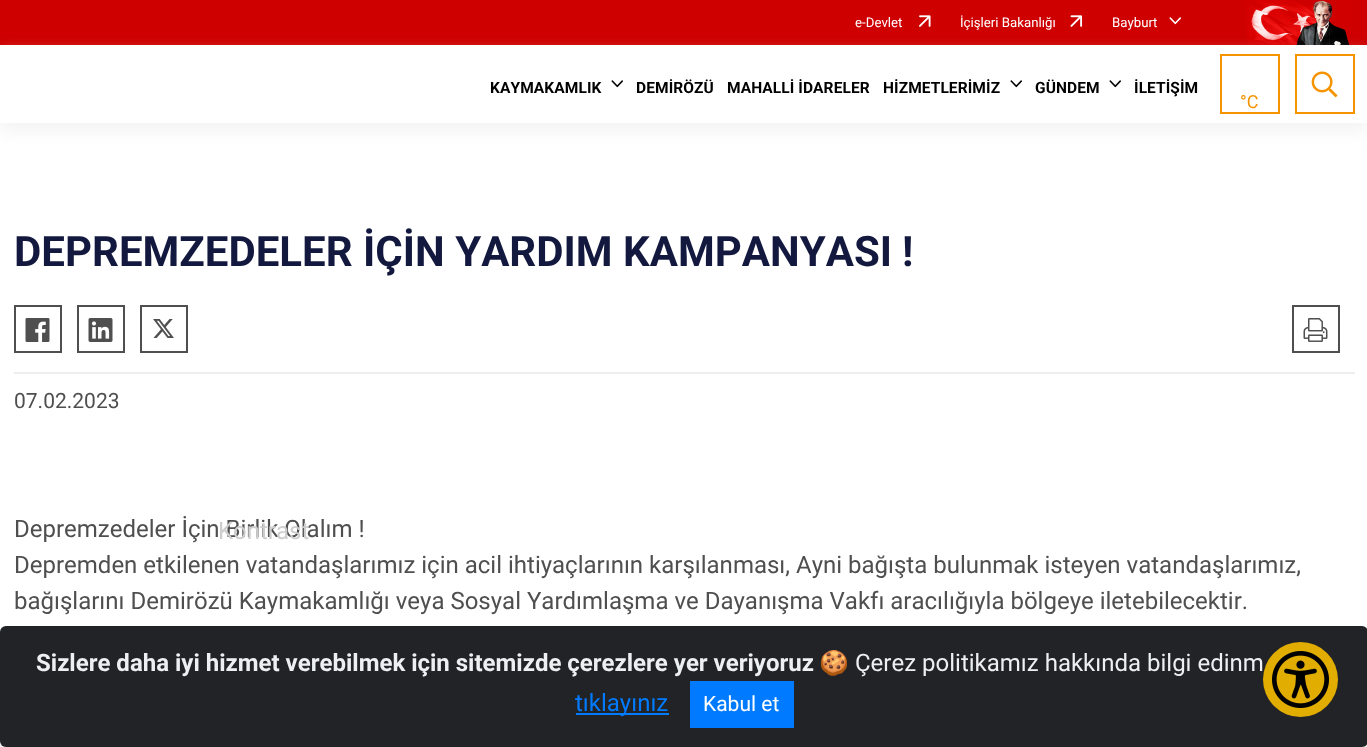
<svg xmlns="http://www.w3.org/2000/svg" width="1367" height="747">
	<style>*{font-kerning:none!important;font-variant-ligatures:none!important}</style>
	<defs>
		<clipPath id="clip1"><path d="M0 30H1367V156H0ZM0 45H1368V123H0Z" clip-rule="evenodd" /></clipPath>
	</defs>
	<rect width="100%" height="100%" fill="#FFFFFF" />
	<rect x="0" y="0" width="1367" height="45" fill="#CE0000" />
	<text x="855" y="27" font-family="Roboto" font-size="13.25" fill="#FFFFFF">e-Devlet</text>
	<image x="919" y="15" width="12" height="12" href="assets/img1.png" />
	<text x="960" y="27" font-family="Roboto" font-size="13.25" fill="#FFFFFF">İçişleri Bakanlığı</text>
	<image x="1070" y="15" width="13" height="12" href="assets/img2.png" />
	<text x="1112" y="27" font-family="Roboto" font-size="13.25" fill="#FFFFFF">Bayburt</text>
	<image x="1169" y="17" width="12" height="8" href="assets/img3.png" />
	<image x="1246" y="0" width="104" height="45" href="assets/img4.png" />
	<g clip-path="url(#clip1)">
		<rect x="0" y="54" width="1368" height="78" fill="#EEEEEE" fill-opacity="0.62" filter="blur(7.5px)" />
	</g>
	<text x="490" y="93" font-family="Roboto" font-size="15.5" font-weight="700" letter-spacing="0.1" fill="#000000">KAYMAKAMLIK</text>
	<image x="611" y="80" width="12" height="8" href="assets/img5.png" />
	<g font-family="Roboto" font-size="15.5" font-weight="700" letter-spacing="0.1" fill="#000000">
		<text x="636" y="93">DEMİRÖZÜ</text>
		<text x="727" y="93">MAHALLİ İDARELER</text>
		<text x="883" y="93">HİZMETLERİMİZ</text>
	</g>
	<image x="1010" y="80" width="12" height="8" href="assets/img5.png" />
	<text x="1035" y="93" font-family="Roboto" font-size="15.5" font-weight="700" letter-spacing="0.1" fill="#000000">GÜNDEM</text>
	<image x="1109" y="80" width="12" height="8" href="assets/img5.png" />
	<text x="1134" y="93" font-family="Roboto" font-size="15.5" font-weight="700" letter-spacing="0.1" fill="#000000">İLETİŞİM</text>
	<rect x="1221" y="55" width="58" height="58" fill="none" stroke="#F59300" stroke-width="2" />
	<text x="1240" y="108" font-family="Roboto" font-size="18" fill="#F59300">°C</text>
	<rect x="1296" y="55" width="58" height="58" fill="none" stroke="#F59300" stroke-width="2" />
	<image x="1311" y="71" width="27" height="27" href="assets/img6.png" />
	<rect x="14" y="372" width="1341" height="2" fill="#EEEEEE" />
	<text x="14" y="266" font-family="Roboto" font-size="42" font-weight="700" fill="#13183E">DEPREMZEDELER İÇİN YARDIM KAMPANYASI</text>
	<text x="902" y="266" font-family="Roboto" font-size="42" font-weight="700" fill="#13183E">!</text>
	<rect x="15" y="306" width="46" height="46" fill="none" stroke="#4F4F4F" stroke-width="2" />
	<image x="25" y="318" width="25" height="24" href="assets/img7.png" />
	<rect x="78" y="306" width="46" height="46" fill="none" stroke="#4F4F4F" stroke-width="2" />
	<image x="88" y="318" width="25" height="24" href="assets/img8.png" />
	<rect x="141" y="306" width="46" height="46" fill="none" stroke="#4F4F4F" stroke-width="2" />
	<image x="153" y="319" width="21" height="19" href="assets/img9.png" />
	<rect x="1293" y="306" width="46" height="46" fill="none" stroke="#4F4F4F" stroke-width="2" />
	<image x="1303" y="318" width="25" height="24" href="assets/img10.png" />
	<text x="14" y="408" font-family="Roboto" font-size="21" fill="#4F4F4F">07.02.2023</text>
	<g font-family="Roboto" font-size="24" fill="#4F4F4F">
		<text x="14" y="537">Depremzedeler İçin Birlik Olalım !</text>
		<text x="14" y="573">Depremden etkilenen vatandaşlarımız için acil ihtiyaçlarının karşılanması, Ayni bağışta bulunmak isteyen vatandaşlarımız,</text>
		<text x="14" y="609">bağışlarını Demirözü Kaymakamlığı veya Sosyal Yardımlaşma ve Dayanışma Vakfı aracılığıyla bölgeye iletebilecektir.</text>
	</g>
	<rect x="0" y="741" width="1367" height="6" fill="#EEEEEE" />
	<text x="218" y="539" font-family="Roboto" font-size="24" fill="#CECECE">Kontrast</text>
	<rect x="0" y="626" width="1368" height="121" rx="6" fill="#212327" />
	<circle cx="1300.5" cy="679.5" r="37.5" fill="#E1AD01" />
	<image x="1272" y="651" width="57" height="57" href="assets/img11.png" />
	<text x="36" y="671" font-family="Roboto" font-size="24" font-weight="700" fill="#ECF0F1">Sizlere daha iyi hizmet verebilmek için sitemizde çerezlere yer veriyoruz</text>
	<text x="819" y="671" font-family="Noto Color Emoji" font-size="24" fill="#ECF0F1">🍪</text>
	<text x="855" y="671" font-family="Roboto" font-size="24" fill="#ECF0F1">Çerez politikamız hakkında bilgi edinm</text>
	<rect x="576" y="713" width="93" height="2" fill="#007BFF" />
	<text x="575" y="711" font-family="Roboto" font-size="24" fill="#007BFF">tıklayınız</text>
	<rect x="690" y="681" width="104" height="47" fill="#007BFF" />
	<text x="703" y="711" font-family="Roboto" font-size="21" fill="#FFFFFF">Kabul et</text>
</svg>
